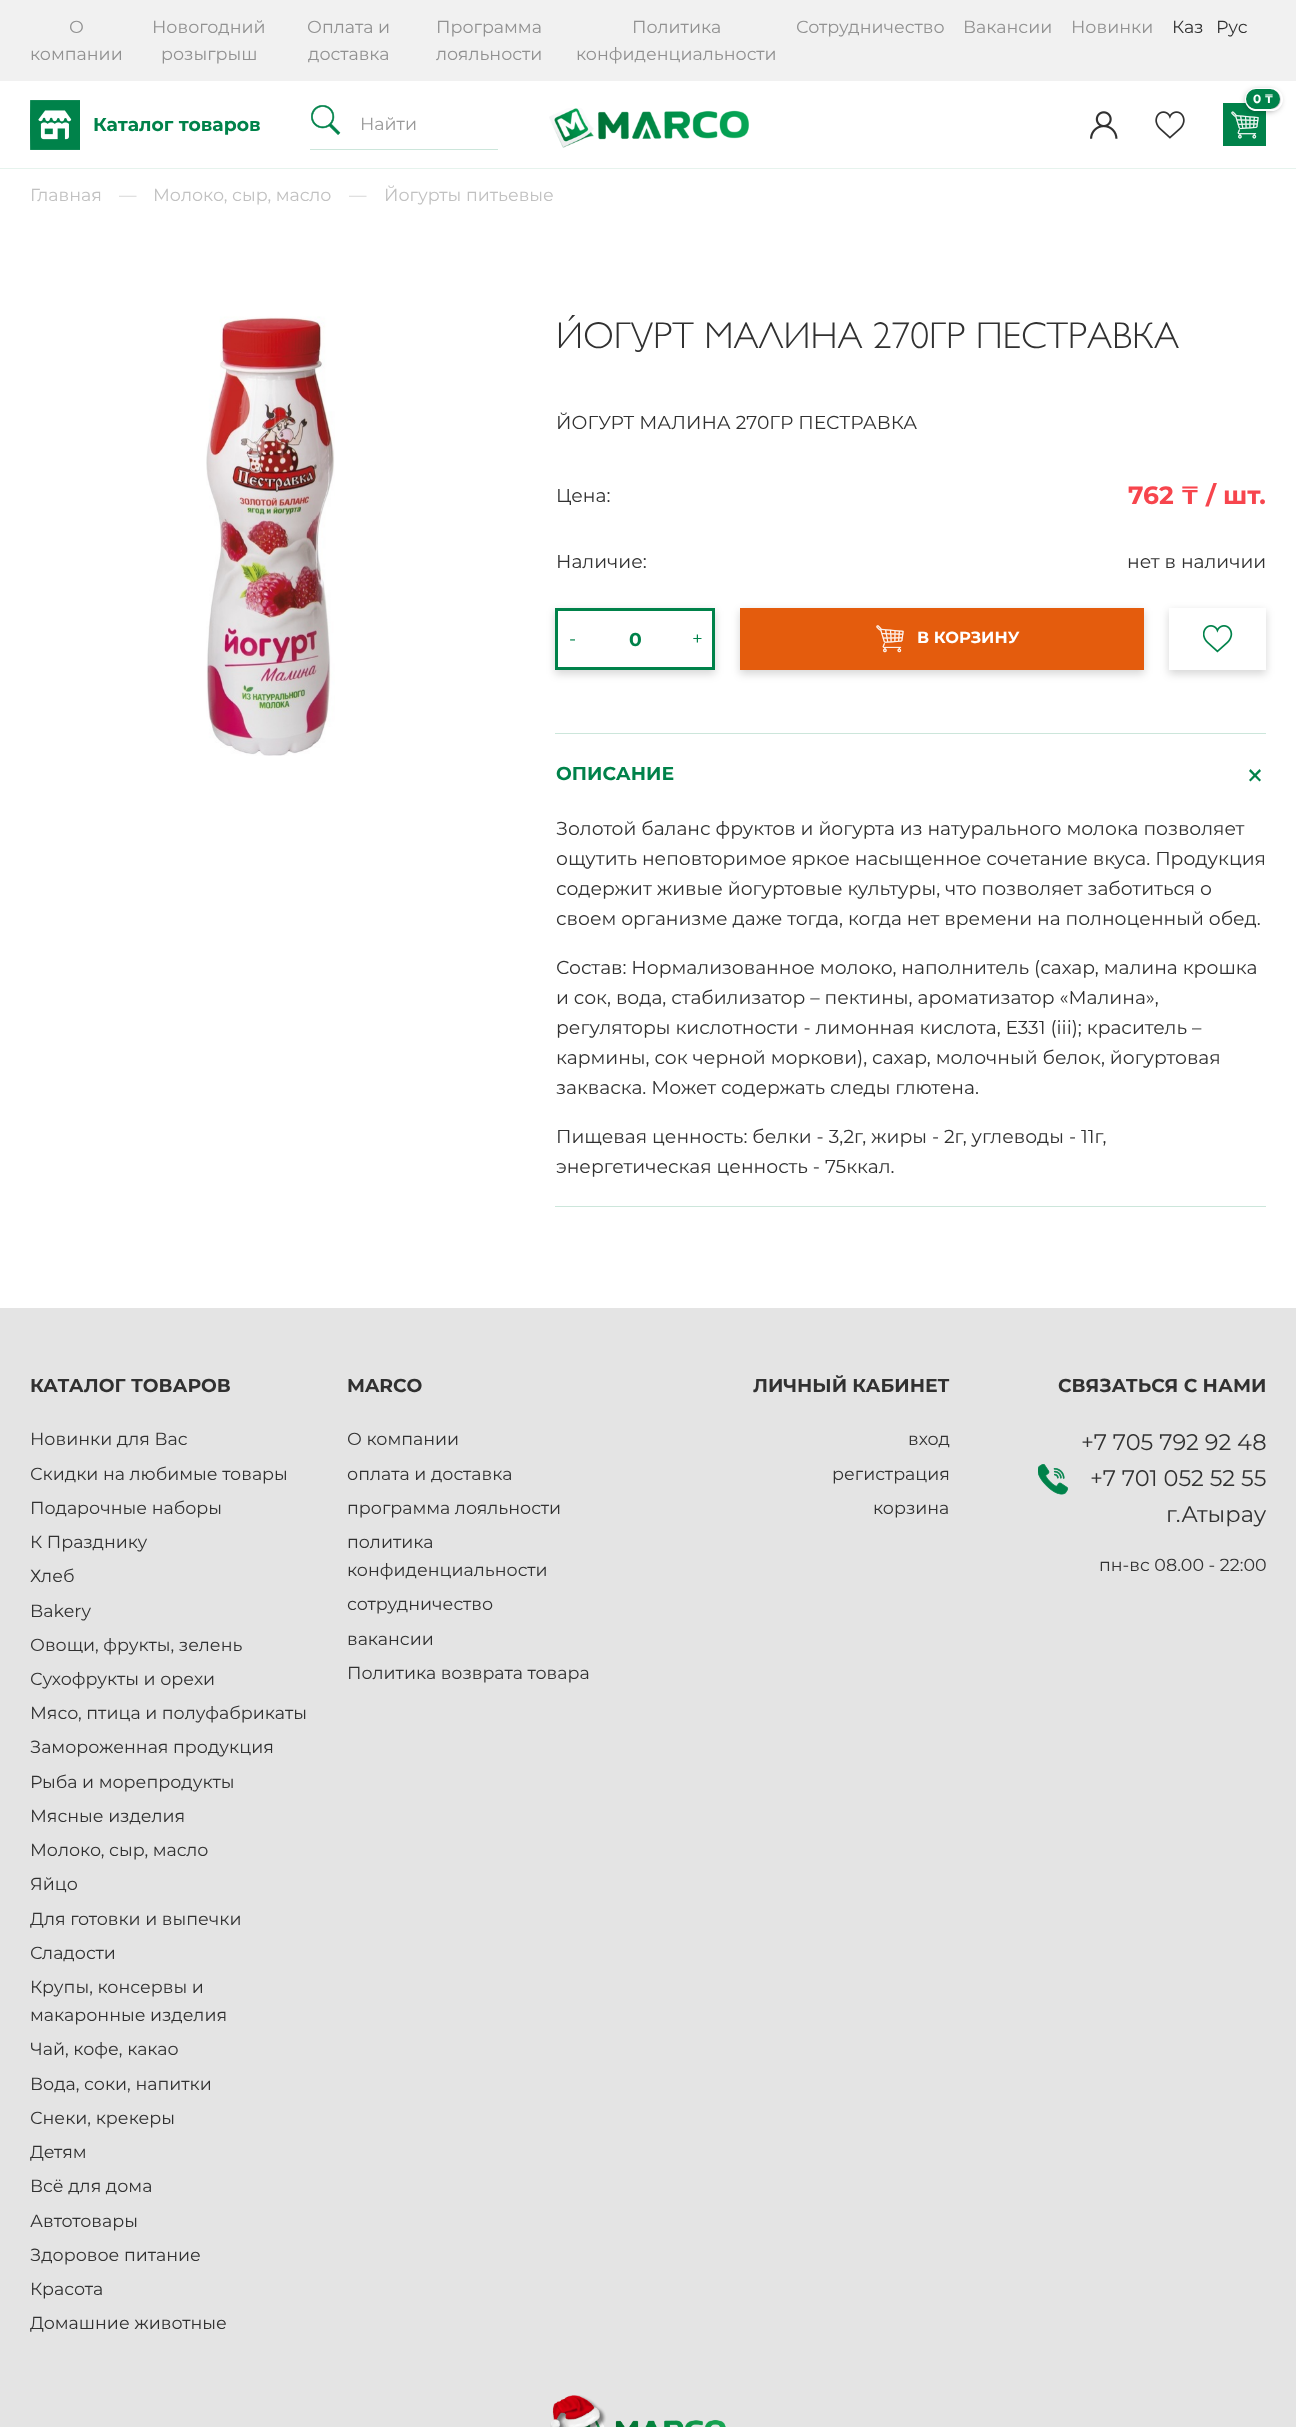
<svg xmlns="http://www.w3.org/2000/svg" width="1296" height="2427">
	<defs>
		<clipPath id="clip1"><path d="M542 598H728V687H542ZM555 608H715V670H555Z" clip-rule="evenodd" /></clipPath>
	</defs>
	<rect width="100%" height="100%" fill="#FFFFFF" />
	<rect x="0" y="168" width="1296" height="1" fill="#E6F3ED" />
	<rect x="0" y="0" width="1296" height="81" fill="#F1F1F1" />
	<g font-family="Montserrat" font-size="17.5" fill="#919191">
		<text x="69" y="33">О</text>
		<text x="30" y="60">компании</text>
		<text x="152" y="33">Новогодний</text>
		<text x="161" y="60">розыгрыш</text>
		<text x="307" y="33">Оплата и</text>
		<text x="308" y="60">доставка</text>
		<text x="436" y="33">Программа</text>
		<text x="436" y="60">лояльности</text>
		<text x="632" y="33">Политика</text>
		<text x="576" y="60">конфиденциальности</text>
		<text x="796" y="33">Сотрудничество</text>
		<text x="963" y="33">Вакансии</text>
		<text x="1071" y="33">Новинки</text>
	</g>
	<g font-family="Montserrat" font-size="17.5" fill="#313131">
		<text x="1172" y="33">Каз</text>
		<text x="1216" y="33">Рус</text>
	</g>
	<rect x="1223" y="103" width="43" height="43" fill="#00824A" />
	<image x="1231" y="111" width="28" height="28" href="assets/img1.png" />
	<rect x="1246" y="91" width="34" height="20" rx="10" fill="#000000" fill-opacity="0.4" filter="blur(3px)" />
	<rect x="1246" y="89" width="36" height="21" rx="10.5" fill="none" stroke="#FFFFFF" stroke-width="2" />
	<rect x="1246" y="89" width="34" height="20" rx="10" fill="#00824A" />
	<text x="1253" y="103" font-family="Montserrat" font-size="12" font-weight="700" fill="#FFFFFF">0 ₸</text>
	<image x="1090" y="111" width="28" height="28" href="assets/img2.png" />
	<image x="1155" y="111" width="30" height="28" href="assets/img3.png" />
	<image x="30" y="100" width="50" height="50" href="assets/img4.png" />
	<text x="93" y="131" font-family="Montserrat" font-size="18.75" font-weight="700" fill="#00824A">Каталог товаров</text>
	<image x="311" y="105" width="30" height="30" href="assets/img5.png" />
	<rect x="310" y="149" width="188" height="1" fill="#CCE6DB" />
	<text x="360" y="130" font-family="Montserrat" font-size="17.5" fill="#999999">Найти</text>
	<image x="549" y="108" width="200" height="40" href="assets/img6.png" />
	<text x="30" y="201" font-family="Montserrat" font-size="17.5" fill="#C1C1C1">Главная</text>
	<text x="119" y="201" font-family="Montserrat" font-size="17.5" fill="#D4D4D4">—</text>
	<text x="153" y="201" font-family="Montserrat" font-size="17.5" fill="#C1C1C1">Молоко, сыр, масло</text>
	<text x="349" y="201" font-family="Montserrat" font-size="17.5" fill="#D4D4D4">—</text>
	<text x="384" y="201" font-family="Montserrat" font-size="17.5" fill="#C1C1C1">Йогурты питьевые</text>
	<image x="206" y="316" width="129" height="440" href="assets/img7.png" />
	<text x="556" y="348" font-family="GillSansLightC" font-size="37.5" font-weight="300" fill="#313131">ЙОГУРТ МАЛИНА 270ГР ПЕСТРАВКА</text>
	<g font-family="Montserrat" font-size="18.75" fill="#313131">
		<text x="556" y="429">ЙОГУРТ МАЛИНА 270ГР ПЕСТРАВКА</text>
		<text x="556" y="502">Цена:</text>
	</g>
	<text x="1128" y="504" font-family="Montserrat" font-size="25" font-weight="700" fill="#F7454D">762 ₸ / шт.</text>
	<g font-family="Montserrat" font-size="18.75" fill="#313131">
		<text x="556" y="568">Наличие:</text>
		<text x="1127" y="568">нет в наличии</text>
	</g>
	<g clip-path="url(#clip1)">
		<rect x="555" y="611" width="160" height="63" fill="#000000" fill-opacity="0.16" filter="blur(4px)" />
	</g>
	<rect x="556.5" y="609.5" width="157" height="59" fill="none" stroke="#00824A" stroke-width="3" />
	<text x="569" y="645" font-family="Montserrat" font-size="18.75" fill="#00824A">-</text>
	<text x="629" y="646" font-family="Montserrat" font-size="18.75" font-weight="700" fill="#00824A">0</text>
	<text x="692" y="645" font-family="Montserrat" font-size="18.75" fill="#00824A">+</text>
	<rect x="740" y="611" width="404" height="63" fill="#000000" fill-opacity="0.16" filter="blur(4px)" />
	<rect x="740.5" y="608.5" width="403" height="61" fill="none" stroke="#E45C0D" />
	<rect x="741" y="609" width="402" height="60" fill="#E45C0D" />
	<image x="876" y="625" width="28" height="28" href="assets/img8.png" />
	<text x="917" y="643" font-family="Montserrat" font-size="16.25" font-weight="700" fill="#FFFFFF">В КОРЗИНУ</text>
	<rect x="1169" y="611" width="97" height="63" fill="#000000" fill-opacity="0.16" filter="blur(4px)" />
	<rect x="1169.5" y="608.5" width="96" height="61" fill="none" stroke="#FFFFFF" />
	<rect x="1170" y="609" width="95" height="60" fill="#FFFFFF" />
	<image x="1203" y="625" width="30" height="28" href="assets/img9.png" />
	<rect x="555" y="733" width="711" height="1" fill="#CCE6DB" />
	<rect x="555" y="1206" width="711" height="1" fill="#CCE6DB" />
	<text x="556" y="780" font-family="Montserrat" font-size="18.75" font-weight="700" fill="#00824A">ОПИСАНИЕ</text>
	<path d="M1250.5 769L1261 780L1259.5 781.5L1249 771Z" fill="#00824A" />
	<path d="M1261 771L1250.5 781.5L1249 780L1259.5 769Z" fill="#00824A" />
	<g font-family="Montserrat" font-size="18.75" fill="#313131">
		<text x="556" y="835">Золотой баланс фруктов и йогурта из натурального молока позволяет</text>
		<text x="556" y="865">ощутить неповторимое яркое насыщенное сочетание вкуса. Продукция</text>
		<text x="556" y="895">содержит живые йогуртовые культуры, что позволяет заботиться о</text>
		<text x="556" y="925">своем организме даже тогда, когда нет времени на полноценный обед.</text>
		<text x="556" y="974">Состав: Нормализованное молоко, наполнитель (сахар, малина крошка</text>
		<text x="556" y="1004">и сок, вода, стабилизатор – пектины, ароматизатор «Малина»,</text>
		<text x="556" y="1034">регуляторы кислотности - лимонная кислота, Е331 (iii); краситель –</text>
		<text x="556" y="1064">кармины, сок черной моркови), сахар, молочный белок, йогуртовая</text>
		<text x="556" y="1094">закваска. Может содержать следы глютена.</text>
		<text x="556" y="1143">Пищевая ценность: белки - 3,2г, жиры - 2г, углеводы - 11г,</text>
		<text x="556" y="1173">энергетическая ценность - 75ккал.</text>
	</g>
	<rect x="0" y="1308" width="1296" height="1119" fill="#E4E4E4" />
	<text x="30" y="1392" font-family="Montserrat" font-size="18.75" font-weight="700" fill="#313131">КАТАЛОГ ТОВАРОВ</text>
	<g font-family="Montserrat" font-size="17.5" fill="#313131">
		<text x="30" y="1445">Новинки для Вас</text>
		<text x="30" y="1480">Скидки на любимые товары</text>
		<text x="30" y="1514">Подарочные наборы</text>
		<text x="30" y="1548">К Празднику</text>
		<text x="30" y="1582">Хлеб</text>
		<text x="30" y="1617">Bakery</text>
		<text x="30" y="1651">Овощи, фрукты, зелень</text>
		<text x="30" y="1685">Сухофрукты и орехи</text>
		<text x="30" y="1719">Мясо, птица и полуфабрикаты</text>
		<text x="30" y="1753">Замороженная продукция</text>
		<text x="30" y="1788">Рыба и морепродукты</text>
		<text x="30" y="1822">Мясные изделия</text>
		<text x="30" y="1856">Молоко, сыр, масло</text>
		<text x="30" y="1890">Яйцо</text>
		<text x="30" y="1925">Для готовки и выпечки</text>
		<text x="30" y="1959">Сладости</text>
		<text x="30" y="1993">Крупы, консервы и</text>
		<text x="30" y="2021">макаронные изделия</text>
		<text x="30" y="2055">Чай, кофе, какао</text>
		<text x="30" y="2090">Вода, соки, напитки</text>
		<text x="30" y="2124">Снеки, крекеры</text>
		<text x="30" y="2158">Детям</text>
		<text x="30" y="2192">Всё для дома</text>
		<text x="30" y="2227">Автотовары</text>
		<text x="30" y="2261">Здоровое питание</text>
		<text x="30" y="2295">Красота</text>
		<text x="30" y="2329">Домашние животные</text>
	</g>
	<text x="347" y="1392" font-family="Montserrat" font-size="18.75" font-weight="700" fill="#313131">MARCO</text>
	<g font-family="Montserrat" font-size="17.5" fill="#313131">
		<text x="347" y="1445">О компании</text>
		<text x="347" y="1480">оплата и доставка</text>
		<text x="347" y="1514">программа лояльности</text>
		<text x="347" y="1548">политика</text>
		<text x="347" y="1576">конфиденциальности</text>
		<text x="347" y="1610">сотрудничество</text>
		<text x="347" y="1645">вакансии</text>
		<text x="347" y="1679">Политика возврата товара</text>
	</g>
	<text x="753" y="1392" font-family="Montserrat" font-size="18.75" font-weight="700" fill="#313131">ЛИЧНЫЙ КАБИНЕТ</text>
	<g font-family="Montserrat" font-size="17.5" fill="#313131">
		<text x="908" y="1445">вход</text>
		<text x="832" y="1480">регистрация</text>
		<text x="873" y="1514">корзина</text>
	</g>
	<text x="1058" y="1392" font-family="Montserrat" font-size="18.75" font-weight="700" fill="#313131">СВЯЗАТЬСЯ С НАМИ</text>
	<image x="1038" y="1464" width="31" height="31" href="assets/img10.png" />
	<g font-family="Montserrat" font-size="22.5" fill="#313131">
		<text x="1081" y="1450">+7 705 792 92 48</text>
		<text x="1090" y="1486">+7 701 052 52 55</text>
		<text x="1166" y="1522">г.Атырау</text>
	</g>
	<text x="1099" y="1571" font-family="Montserrat" font-size="17.5" fill="#313131">пн-вc 08.00 - 22:00</text>
	<image x="550" y="2395" width="176" height="32" href="assets/img11.png" />
</svg>
